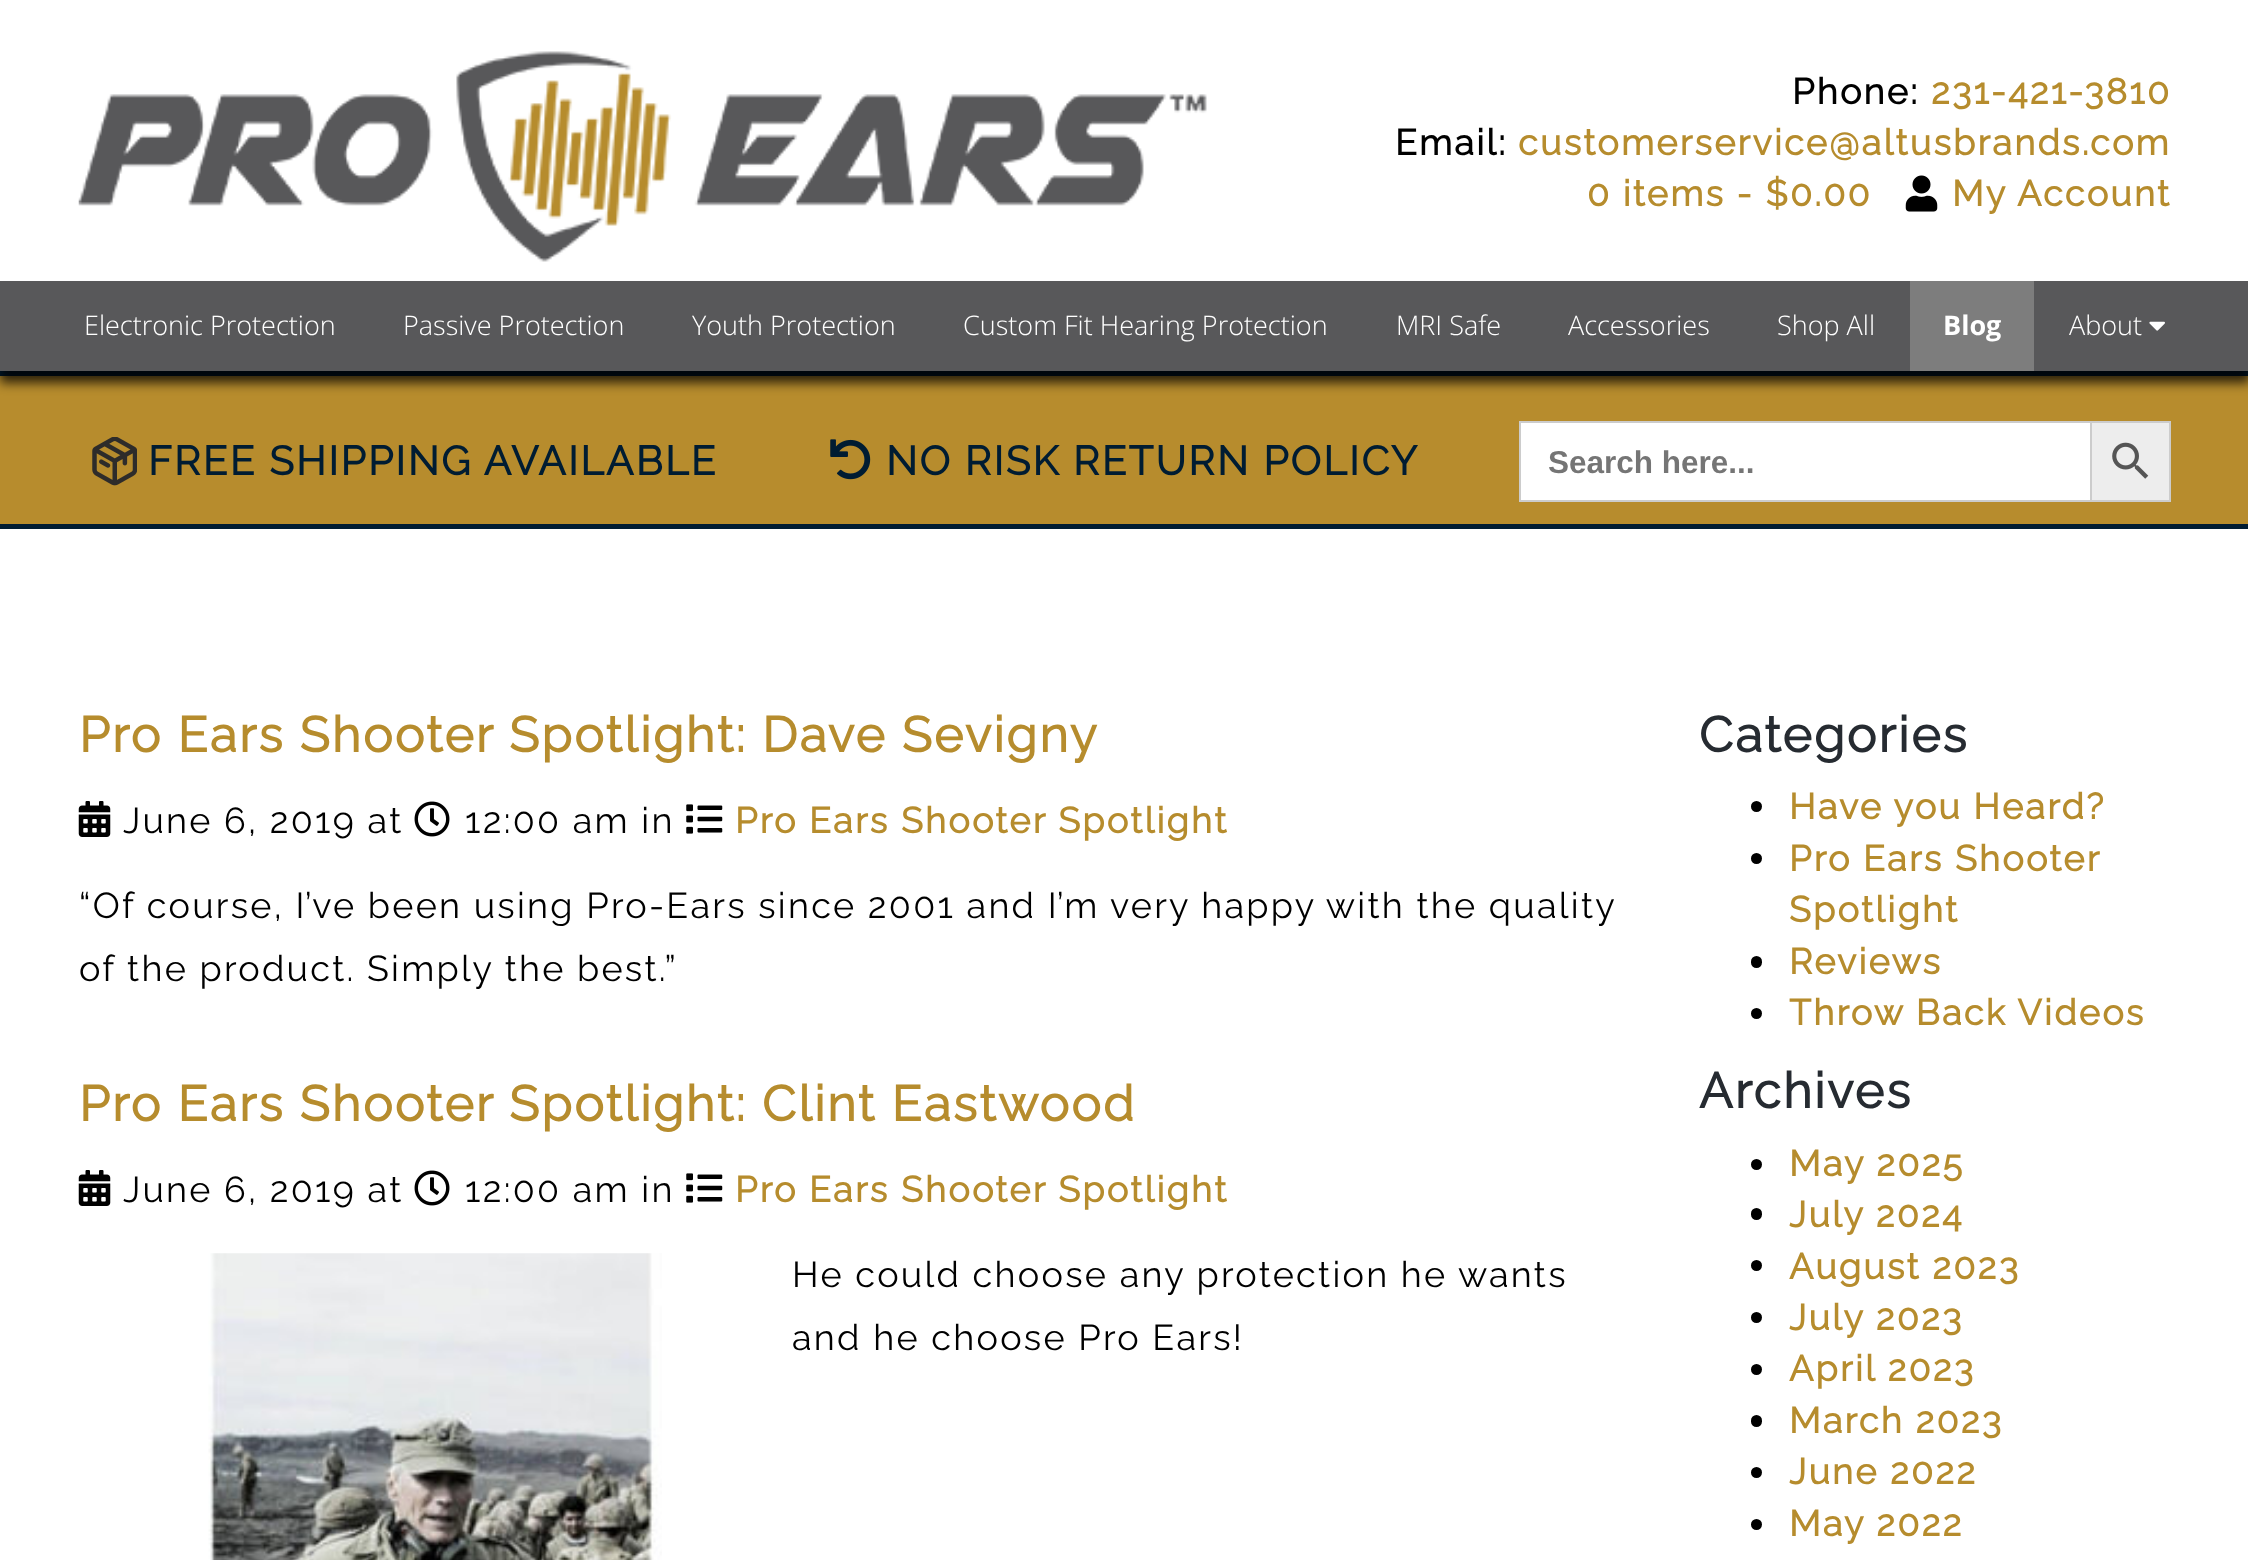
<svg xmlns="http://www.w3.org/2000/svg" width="2248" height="1560">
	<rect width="100%" height="100%" fill="#FFFFFF" />
	<image x="78" y="51" width="1129" height="211" href="assets/img1.png" />
	<text x="1792" y="104" font-family="Raleway" font-size="36" font-weight="700" letter-spacing="2.25" fill="#000000">Phone:</text>
	<text x="1931" y="104" font-family="Raleway" font-size="36" font-weight="700" letter-spacing="2.25" fill="#B68C2D">231-421-3810</text>
	<text x="1395" y="155" font-family="Raleway" font-size="36" font-weight="700" letter-spacing="2.25" fill="#000000">Email:</text>
	<g font-family="Raleway" font-size="36" font-weight="700" letter-spacing="2.25" fill="#B68C2D">
		<text x="1518" y="155">customerservice@altusbrands.com</text>
		<text x="1587" y="206">0 items - $0.00</text>
	</g>
	<image x="1905" y="175" width="33" height="37" href="assets/img2.png" />
	<text x="1952" y="206" font-family="Raleway" font-size="36" font-weight="700" letter-spacing="2.25" fill="#B68C2D">My Account</text>
	<rect x="0" y="376" width="2248" height="148" fill="#B78C2D" />
	<rect x="0" y="371" width="2248" height="5" fill="#001C32" />
	<rect x="0" y="293" width="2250" height="90" fill="#000000" fill-opacity="0.75" filter="blur(5.5px)" />
	<rect x="0" y="281" width="2248" height="90" fill="#58585A" />
	<g font-family="Open Sans" font-size="27" font-weight="300" fill="#FFFFFF">
		<text x="84" y="335">Electronic Protection</text>
		<text x="403" y="335">Passive Protection</text>
		<text x="692" y="335">Youth Protection</text>
		<text x="963" y="335">Custom Fit Hearing Protection</text>
		<text x="1396" y="335">MRI Safe</text>
		<text x="1568" y="335">Accessories</text>
		<text x="1777" y="335">Shop All</text>
	</g>
	<rect x="1910" y="281" width="124" height="90" fill="#7D7D7D" />
	<text x="1943" y="335" font-family="Open Sans" font-size="27" font-weight="700" fill="#FFFFFF">Blog</text>
	<text x="2069" y="335" font-family="Open Sans" font-size="27" font-weight="300" fill="#FFFFFF">About</text>
	<image x="2149" y="321" width="16" height="10" href="assets/img3.png" />
	<rect x="0" y="524" width="2248" height="5" fill="#001C32" />
	<image x="92" y="437" width="45" height="49" href="assets/img4.png" />
	<text x="148" y="475" font-family="Raleway" font-size="40.5" font-weight="700" letter-spacing="2.25" fill="#001C32">FREE SHIPPING AVAILABLE</text>
	<image x="830" y="439" width="41" height="41" href="assets/img5.png" />
	<text x="886" y="475" font-family="Raleway" font-size="40.5" font-weight="700" letter-spacing="2.25" fill="#001C32">NO RISK RETURN POLICY</text>
	<rect x="1521" y="423" width="569" height="77" fill="#FFFFFF" />
	<rect x="1519" y="421" width="571" height="2" fill="#CCCCCC" />
	<rect x="1519" y="500" width="571" height="2" fill="#CCCCCC" />
	<rect x="1519" y="421" width="2" height="81" fill="#CCCCCC" />
	<text x="1548" y="473" font-family="Liberation Sans" font-size="31.5" font-weight="700" fill="#757575">Search here...</text>
	<rect x="2091" y="422" width="79" height="79" fill="#EDEDED" stroke="#CCCCCC" stroke-width="2" />
	<image x="2112" y="442" width="37" height="37" href="assets/img6.png" />
	<text x="79" y="752" font-family="Raleway" font-size="49.5" font-weight="700" letter-spacing="2.25" fill="#B68C2D">Pro Ears Shooter Spotlight: Dave Sevigny</text>
	<image x="78" y="801" width="33" height="36" href="assets/img7.png" />
	<text x="123" y="833" font-family="Raleway" font-size="36" font-weight="100" letter-spacing="2.25" fill="#000000">June 6, 2019 at</text>
	<image x="414" y="801" width="36" height="36" href="assets/img8.png" />
	<text x="465" y="833" font-family="Raleway" font-size="36" font-weight="100" letter-spacing="2.25" fill="#000000">12:00 am in</text>
	<image x="686" y="804" width="37" height="30" href="assets/img9.png" />
	<text x="735" y="833" font-family="Raleway" font-size="36" font-weight="700" letter-spacing="2.25" fill="#B68C2D">Pro Ears Shooter Spotlight</text>
	<g font-family="Raleway" font-size="36" font-weight="100" letter-spacing="2.25" fill="#000000">
		<text x="79" y="918">“Of course, I’ve been using Pro-Ears since 2001 and I’m very happy with the quality</text>
		<text x="79" y="981">of the product. Simply the best.”</text>
	</g>
	<text x="79" y="1121" font-family="Raleway" font-size="49.5" font-weight="700" letter-spacing="2.25" fill="#B68C2D">Pro Ears Shooter Spotlight: Clint Eastwood</text>
	<image x="78" y="1170" width="33" height="36" href="assets/img7.png" />
	<text x="123" y="1202" font-family="Raleway" font-size="36" font-weight="100" letter-spacing="2.25" fill="#000000">June 6, 2019 at</text>
	<image x="414" y="1170" width="36" height="36" href="assets/img8.png" />
	<text x="465" y="1202" font-family="Raleway" font-size="36" font-weight="100" letter-spacing="2.25" fill="#000000">12:00 am in</text>
	<image x="686" y="1173" width="37" height="30" href="assets/img9.png" />
	<text x="735" y="1202" font-family="Raleway" font-size="36" font-weight="700" letter-spacing="2.25" fill="#B68C2D">Pro Ears Shooter Spotlight</text>
	<image x="208" y="1253" width="454" height="307" href="assets/img10.png" />
	<g font-family="Raleway" font-size="36" font-weight="100" letter-spacing="2.25" fill="#000000">
		<text x="792" y="1287">He could choose any protection he wants</text>
		<text x="792" y="1350">and he choose Pro Ears!</text>
	</g>
	<text x="1699" y="752" font-family="Raleway" font-size="49.5" font-weight="700" letter-spacing="2.25" fill="#262B31">Categories</text>
	<circle cx="1756.5" cy="806.5" r="5.5" fill="#000000" />
	<text x="1789" y="819" font-family="Raleway" font-size="36" font-weight="700" letter-spacing="2.25" fill="#B68C2D">Have you Heard?</text>
	<circle cx="1756.5" cy="858.5" r="5.5" fill="#000000" />
	<g font-family="Raleway" font-size="36" font-weight="700" letter-spacing="2.25" fill="#B68C2D">
		<text x="1789" y="871">Pro Ears Shooter</text>
		<text x="1789" y="922">Spotlight</text>
	</g>
	<rect x="1751" y="956" width="11" height="12" rx="5.5" fill="#000000" />
	<text x="1789" y="974" font-family="Raleway" font-size="36" font-weight="700" letter-spacing="2.25" fill="#B68C2D">Reviews</text>
	<circle cx="1756.5" cy="1013.5" r="5.5" fill="#000000" />
	<text x="1789" y="1025" font-family="Raleway" font-size="36" font-weight="700" letter-spacing="2.25" fill="#B68C2D">Throw Back Videos</text>
	<text x="1699" y="1108" font-family="Raleway" font-size="49.5" font-weight="700" letter-spacing="2.25" fill="#262B31">Archives</text>
	<circle cx="1756.5" cy="1164.5" r="5.5" fill="#000000" />
	<text x="1789" y="1176" font-family="Raleway" font-size="36" font-weight="700" letter-spacing="2.25" fill="#B68C2D">May 2025</text>
	<rect x="1751" y="1208" width="11" height="12" rx="5.5" fill="#000000" />
	<text x="1789" y="1227" font-family="Raleway" font-size="36" font-weight="700" letter-spacing="2.25" fill="#B68C2D">July 2024</text>
	<circle cx="1756.5" cy="1265.5" r="5.5" fill="#000000" />
	<text x="1789" y="1279" font-family="Raleway" font-size="36" font-weight="700" letter-spacing="2.25" fill="#B68C2D">August 2023</text>
	<circle cx="1756.5" cy="1317.5" r="5.5" fill="#000000" />
	<text x="1789" y="1330" font-family="Raleway" font-size="36" font-weight="700" letter-spacing="2.25" fill="#B68C2D">July 2023</text>
	<circle cx="1756.5" cy="1369.5" r="5.5" fill="#000000" />
	<text x="1789" y="1381" font-family="Raleway" font-size="36" font-weight="700" letter-spacing="2.25" fill="#B68C2D">April 2023</text>
	<rect x="1751" y="1415" width="11" height="12" rx="5.5" fill="#000000" />
	<text x="1789" y="1433" font-family="Raleway" font-size="36" font-weight="700" letter-spacing="2.25" fill="#B68C2D">March 2023</text>
	<circle cx="1756.5" cy="1472.5" r="5.5" fill="#000000" />
	<text x="1789" y="1484" font-family="Raleway" font-size="36" font-weight="700" letter-spacing="2.25" fill="#B68C2D">June 2022</text>
	<circle cx="1756.5" cy="1524.5" r="5.5" fill="#000000" />
	<text x="1789" y="1536" font-family="Raleway" font-size="36" font-weight="700" letter-spacing="2.25" fill="#B68C2D">May 2022</text>
</svg>
